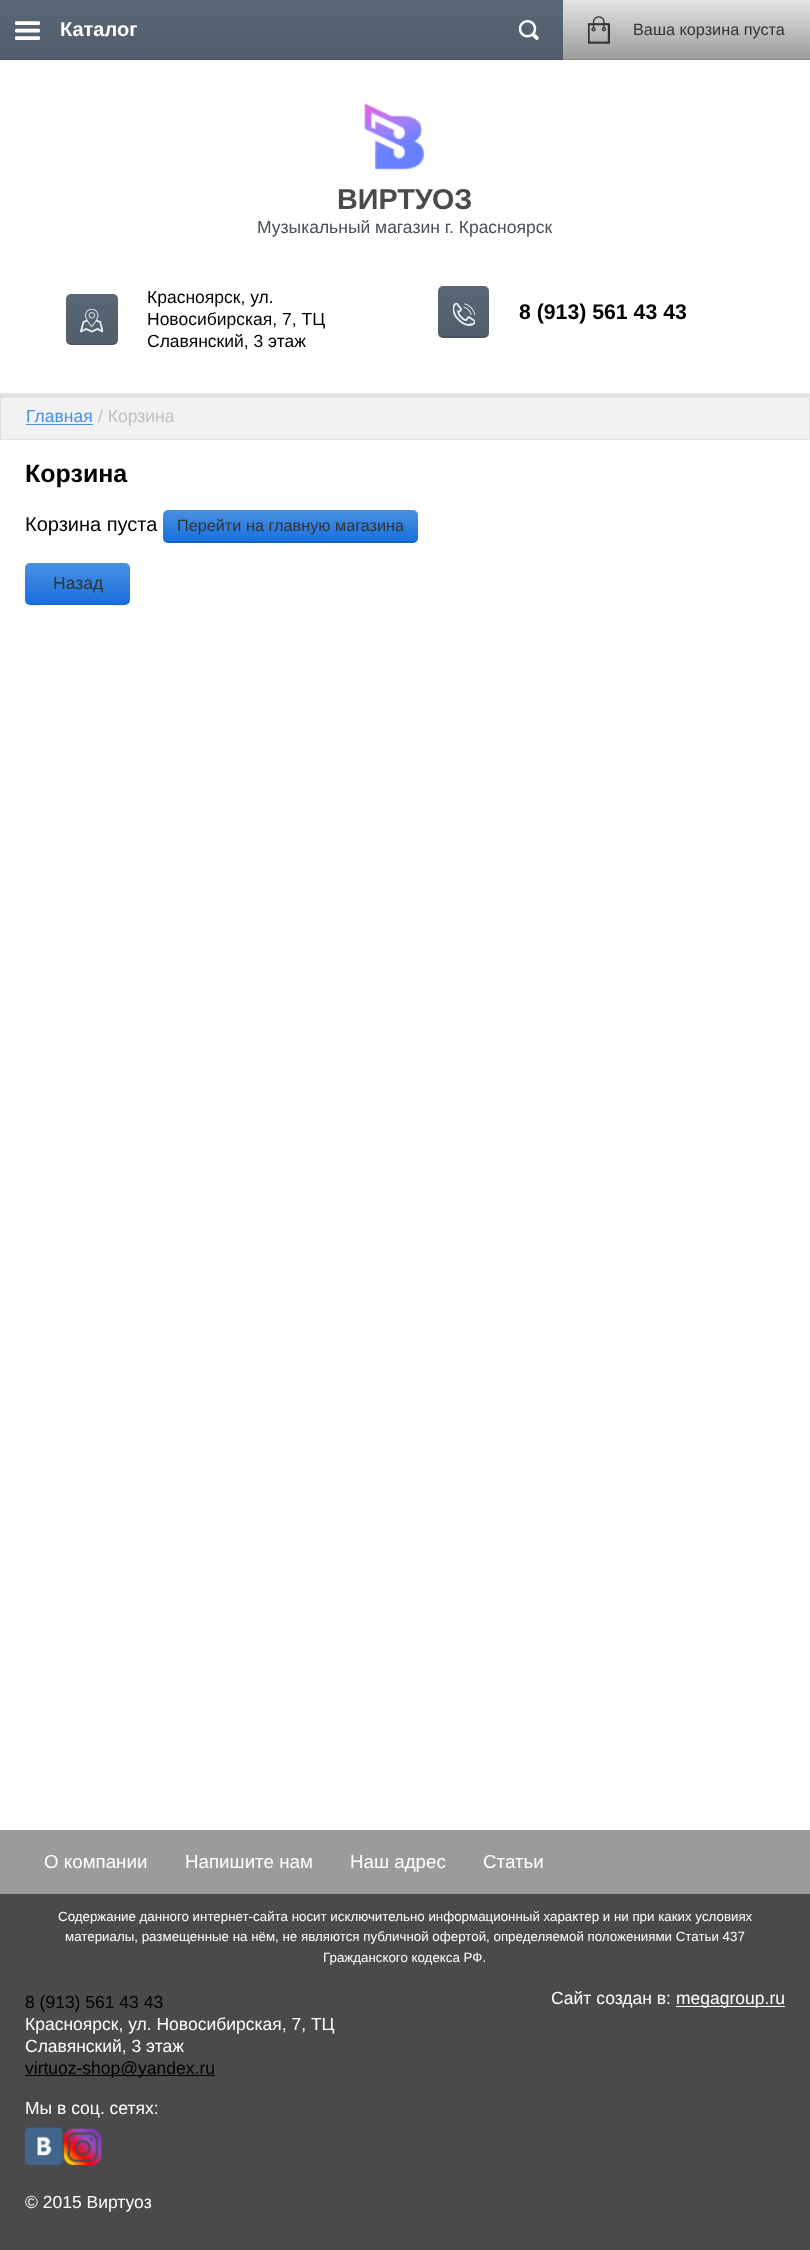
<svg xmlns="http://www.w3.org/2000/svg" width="810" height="2250">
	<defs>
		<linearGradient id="g1" gradientUnits="userSpaceOnUse" x1="405" y1="60" x2="405" y2="0"><stop offset="0" stop-color="#515D6A" /><stop offset="1" stop-color="#596776" /></linearGradient>
		<linearGradient id="g2" gradientUnits="userSpaceOnUse" x1="686" y1="60" x2="686" y2="0"><stop offset="0" stop-color="#9B9B9B" /><stop offset="1" stop-color="#E3E3E3" /></linearGradient>
		<linearGradient id="g3" gradientUnits="userSpaceOnUse" x1="92" y1="345" x2="92" y2="294"><stop offset="0" stop-color="#515D6A" /><stop offset="1" stop-color="#596776" /></linearGradient>
		<linearGradient id="g4" gradientUnits="userSpaceOnUse" x1="463" y1="338" x2="463" y2="286"><stop offset="0" stop-color="#515D6A" /><stop offset="1" stop-color="#596776" /></linearGradient>
		<linearGradient id="g5" gradientUnits="userSpaceOnUse" x1="290" y1="543" x2="290" y2="510"><stop offset="0" stop-color="#166FDD" /><stop offset="1" stop-color="#4A90E2" /></linearGradient>
		<linearGradient id="g6" gradientUnits="userSpaceOnUse" x1="78" y1="605" x2="78" y2="563"><stop offset="0" stop-color="#166FDD" /><stop offset="1" stop-color="#4A90E2" /></linearGradient>
	</defs>
	<rect width="100%" height="100%" fill="#FFFFFF" />
	<rect x="0" y="0" width="563" height="59" fill="url(#g1)" />
	<image x="15" y="21" width="25" height="19" href="assets/img1.png" />
	<text x="60" y="36" font-family="Liberation Sans" font-size="20" font-weight="700" fill="#FFFFFF">Каталог</text>
	<rect x="0" y="59" width="563" height="1" fill="#49545F" />
	<image x="519" y="20" width="20" height="20" href="assets/img2.png" />
	<rect x="563" y="0" width="247" height="59" fill="url(#g2)" />
	<rect x="563" y="59" width="247" height="1" fill="#8C8C8C" />
	<image x="588" y="16" width="22" height="28" href="assets/img3.png" />
	<text x="633" y="35" font-family="Liberation Sans" font-size="16.25" fill="#333333">Ваша корзина пуста</text>
	<image x="363" y="103" width="62" height="67" href="assets/img4.png" />
	<text x="337" y="209" font-family="Liberation Sans" font-size="28.75" font-weight="700" fill="#4A4A4A">ВИРТУОЗ</text>
	<text x="257" y="233" font-family="Liberation Sans" font-size="17.5" fill="#474F54">Музыкальный магазин г. Красноярск</text>
	<rect x="66" y="294" width="52" height="51" rx="5" fill="url(#g3)" />
	<path d="M66 339C66 346 72 345 78 345H106C112 345 118 346 118 339C118 342 115 344 112 344H71C68 344 66 342 66 339Z" fill="#000000" fill-opacity="0.1" />
	<image x="80" y="309" width="23" height="24" href="assets/img5.png" />
	<g font-family="Liberation Sans" font-size="17.5" fill="#000000">
		<text x="147" y="303">Красноярск, ул.</text>
		<text x="147" y="325">Новосибирская, 7, ТЦ</text>
		<text x="147" y="347">Славянский, 3 этаж</text>
	</g>
	<rect x="438" y="286" width="51" height="52" rx="5" fill="url(#g4)" />
	<path d="M438 331C438 339 443 338 450 338H477C484 338 489 339 489 331C489 334 487 336 484 336H442C440 336 438 334 438 331Z" fill="#000000" fill-opacity="0.1" />
	<image x="453" y="303" width="22" height="23" href="assets/img6.png" />
	<text x="519" y="319" font-family="Liberation Sans" font-size="21.25" font-weight="700" fill="#000000">8 (913) 561 43 43</text>
	<rect x="1" y="398" width="808" height="41" fill="#F2F2F2" />
	<rect x="1" y="394" width="808" height="4" fill="#E3E3E3" />
	<rect x="0.5" y="393.5" width="809" height="46" fill="none" stroke="#E1E1E1" />
	<text x="26" y="422" font-family="Liberation Sans" font-size="17.5" fill="#4A90E2">Главная</text>
	<rect x="26" y="424" width="67" height="1" fill="#4A90E2" />
	<text x="98" y="422" font-family="Liberation Sans" font-size="17.5" fill="#C0C0C0">/ Корзина</text>
	<text x="25" y="482" font-family="Liberation Sans" font-size="25" font-weight="700" fill="#000000">Корзина</text>
	<text x="25" y="531" font-family="Liberation Sans" font-size="20" fill="#000000">Корзина пуста</text>
	<rect x="163" y="510" width="255" height="33" rx="5" fill="url(#g5)" />
	<path d="M163 539C163 541 166 543 168 543H413C416 543 418 541 418 538V536C418 539 415 541 412 541H168C166 541 164 540 163 539Z" fill="#000000" fill-opacity="0.1" />
	<text x="177" y="531" font-family="Liberation Sans" font-size="16.25" fill="#333333">Перейти на главную магазина</text>
	<rect x="25" y="563" width="105" height="42" rx="5" fill="url(#g6)" />
	<path d="M25 599C25 609 41 605 46 605H109C114 605 130 609 130 599C130 602 128 604 125 604H30C27 604 25 602 25 599Z" fill="#000000" fill-opacity="0.1" />
	<text x="53" y="589" font-family="Liberation Sans" font-size="17.5" fill="#333333">Назад</text>
	<rect x="0" y="1894" width="810" height="356" fill="#4A4A4A" />
	<rect x="0" y="1830" width="810" height="64" fill="#9B9B9B" />
	<g font-family="Liberation Sans" font-size="18.75" fill="#FFFFFF">
		<text x="44" y="1868">О компании</text>
		<text x="185" y="1868">Напишите нам</text>
		<text x="350" y="1868">Наш адрес</text>
		<text x="483" y="1868">Статьи</text>
	</g>
	<g font-family="Liberation Sans" font-size="13.33" fill="#FFFFFF">
		<text x="58" y="1921">Содержание данного интернет-сайта носит исключительно информационный характер и ни при каких условиях</text>
		<text x="65" y="1941">материалы, размещенные на нём, не являются публичной офертой, определяемой положениями Статьи 437</text>
		<text x="323" y="1962">Гражданского кодекса РФ.</text>
	</g>
	<text x="25" y="2008" font-family="Liberation Sans" font-size="17.5" fill="#000000">8 (913) 561 43 43</text>
	<g font-family="Liberation Sans" font-size="17.5" fill="#FFFFFF">
		<text x="25" y="2030">Красноярск, ул. Новосибирская, 7, ТЦ</text>
		<text x="25" y="2052">Славянский, 3 этаж</text>
	</g>
	<rect x="25" y="2075" width="190" height="1" fill="#000000" />
	<text x="25" y="2074" font-family="Liberation Sans" font-size="17.5" fill="#000000">virtuoz-shop@yandex.ru</text>
	<text x="25" y="2114" font-family="Liberation Sans" font-size="17.5" fill="#FFFFFF">Мы в соц. сетях:</text>
	<image x="25" y="2127" width="38" height="38" href="assets/img7.png" />
	<image x="63" y="2128" width="39" height="37" href="assets/img8.png" />
	<text x="551" y="2004" font-family="Liberation Sans" font-size="17.5" fill="#FFFFFF">Сайт создан в:</text>
	<rect x="676" y="2006" width="109" height="1" fill="#FFFFFF" />
	<g font-family="Liberation Sans" font-size="17.5" fill="#FFFFFF">
		<text x="676" y="2004">megagroup.ru</text>
		<text x="25" y="2208">© 2015 Виртуоз</text>
	</g>
</svg>
